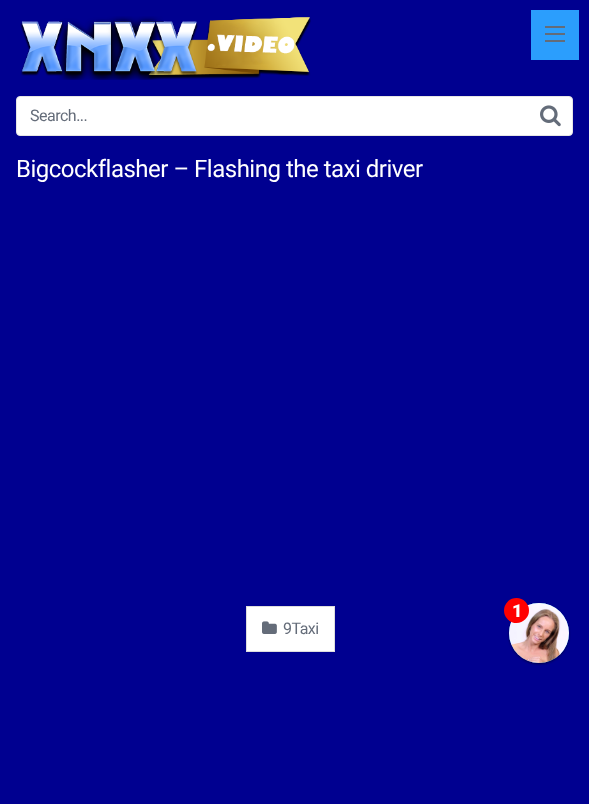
<svg xmlns="http://www.w3.org/2000/svg" width="589" height="804">
	<rect width="100%" height="100%" fill="#000090" />
	<image x="20" y="16" width="291" height="64" href="assets/img1.png" />
	<rect x="531" y="10" width="48" height="50" fill="#2B9EFD" />
	<rect x="545" y="26" width="20" height="2" fill="#646C79" />
	<rect x="545" y="33" width="20" height="2" fill="#646C79" />
	<rect x="545" y="40" width="20" height="2" fill="#646C79" />
	<rect x="16.5" y="96.5" width="556" height="39" rx="3.5" fill="#FFFFFF" stroke="#E5E5E5" />
	<text x="30" y="121" font-family="Roboto" font-size="16" letter-spacing="-0.5" fill="#646C79">Search...</text>
	<image x="540" y="105" width="21" height="22" href="assets/img2.png" />
	<text x="16" y="177" font-family="Roboto" font-size="24" letter-spacing="-0.5" fill="#FFFFFF">Bigcockflasher – Flashing the taxi driver</text>
	<rect x="246.5" y="606.5" width="88" height="45" fill="#FFFFFF" stroke="#DDDDDD" />
	<image x="262" y="621" width="15" height="13" href="assets/img3.png" />
	<text x="283" y="634" font-family="Roboto" font-size="16" letter-spacing="-0.5" fill="#646C79">9Taxi</text>
	<rect x="509" y="604" width="60" height="60" rx="30" fill="#000000" fill-opacity="0.5" filter="blur(1px)" />
	<circle cx="539" cy="633" r="30" fill="#2B9EFD" />
	<image x="509" y="603" width="60" height="60" href="assets/img4.png" />
	<circle cx="516.5" cy="610.5" r="12.5" fill="#FF0000" />
	<text x="512" y="617" font-family="Roboto" font-size="18" font-weight="900" letter-spacing="-0.5" fill="#FFFFFF">1</text>
</svg>
